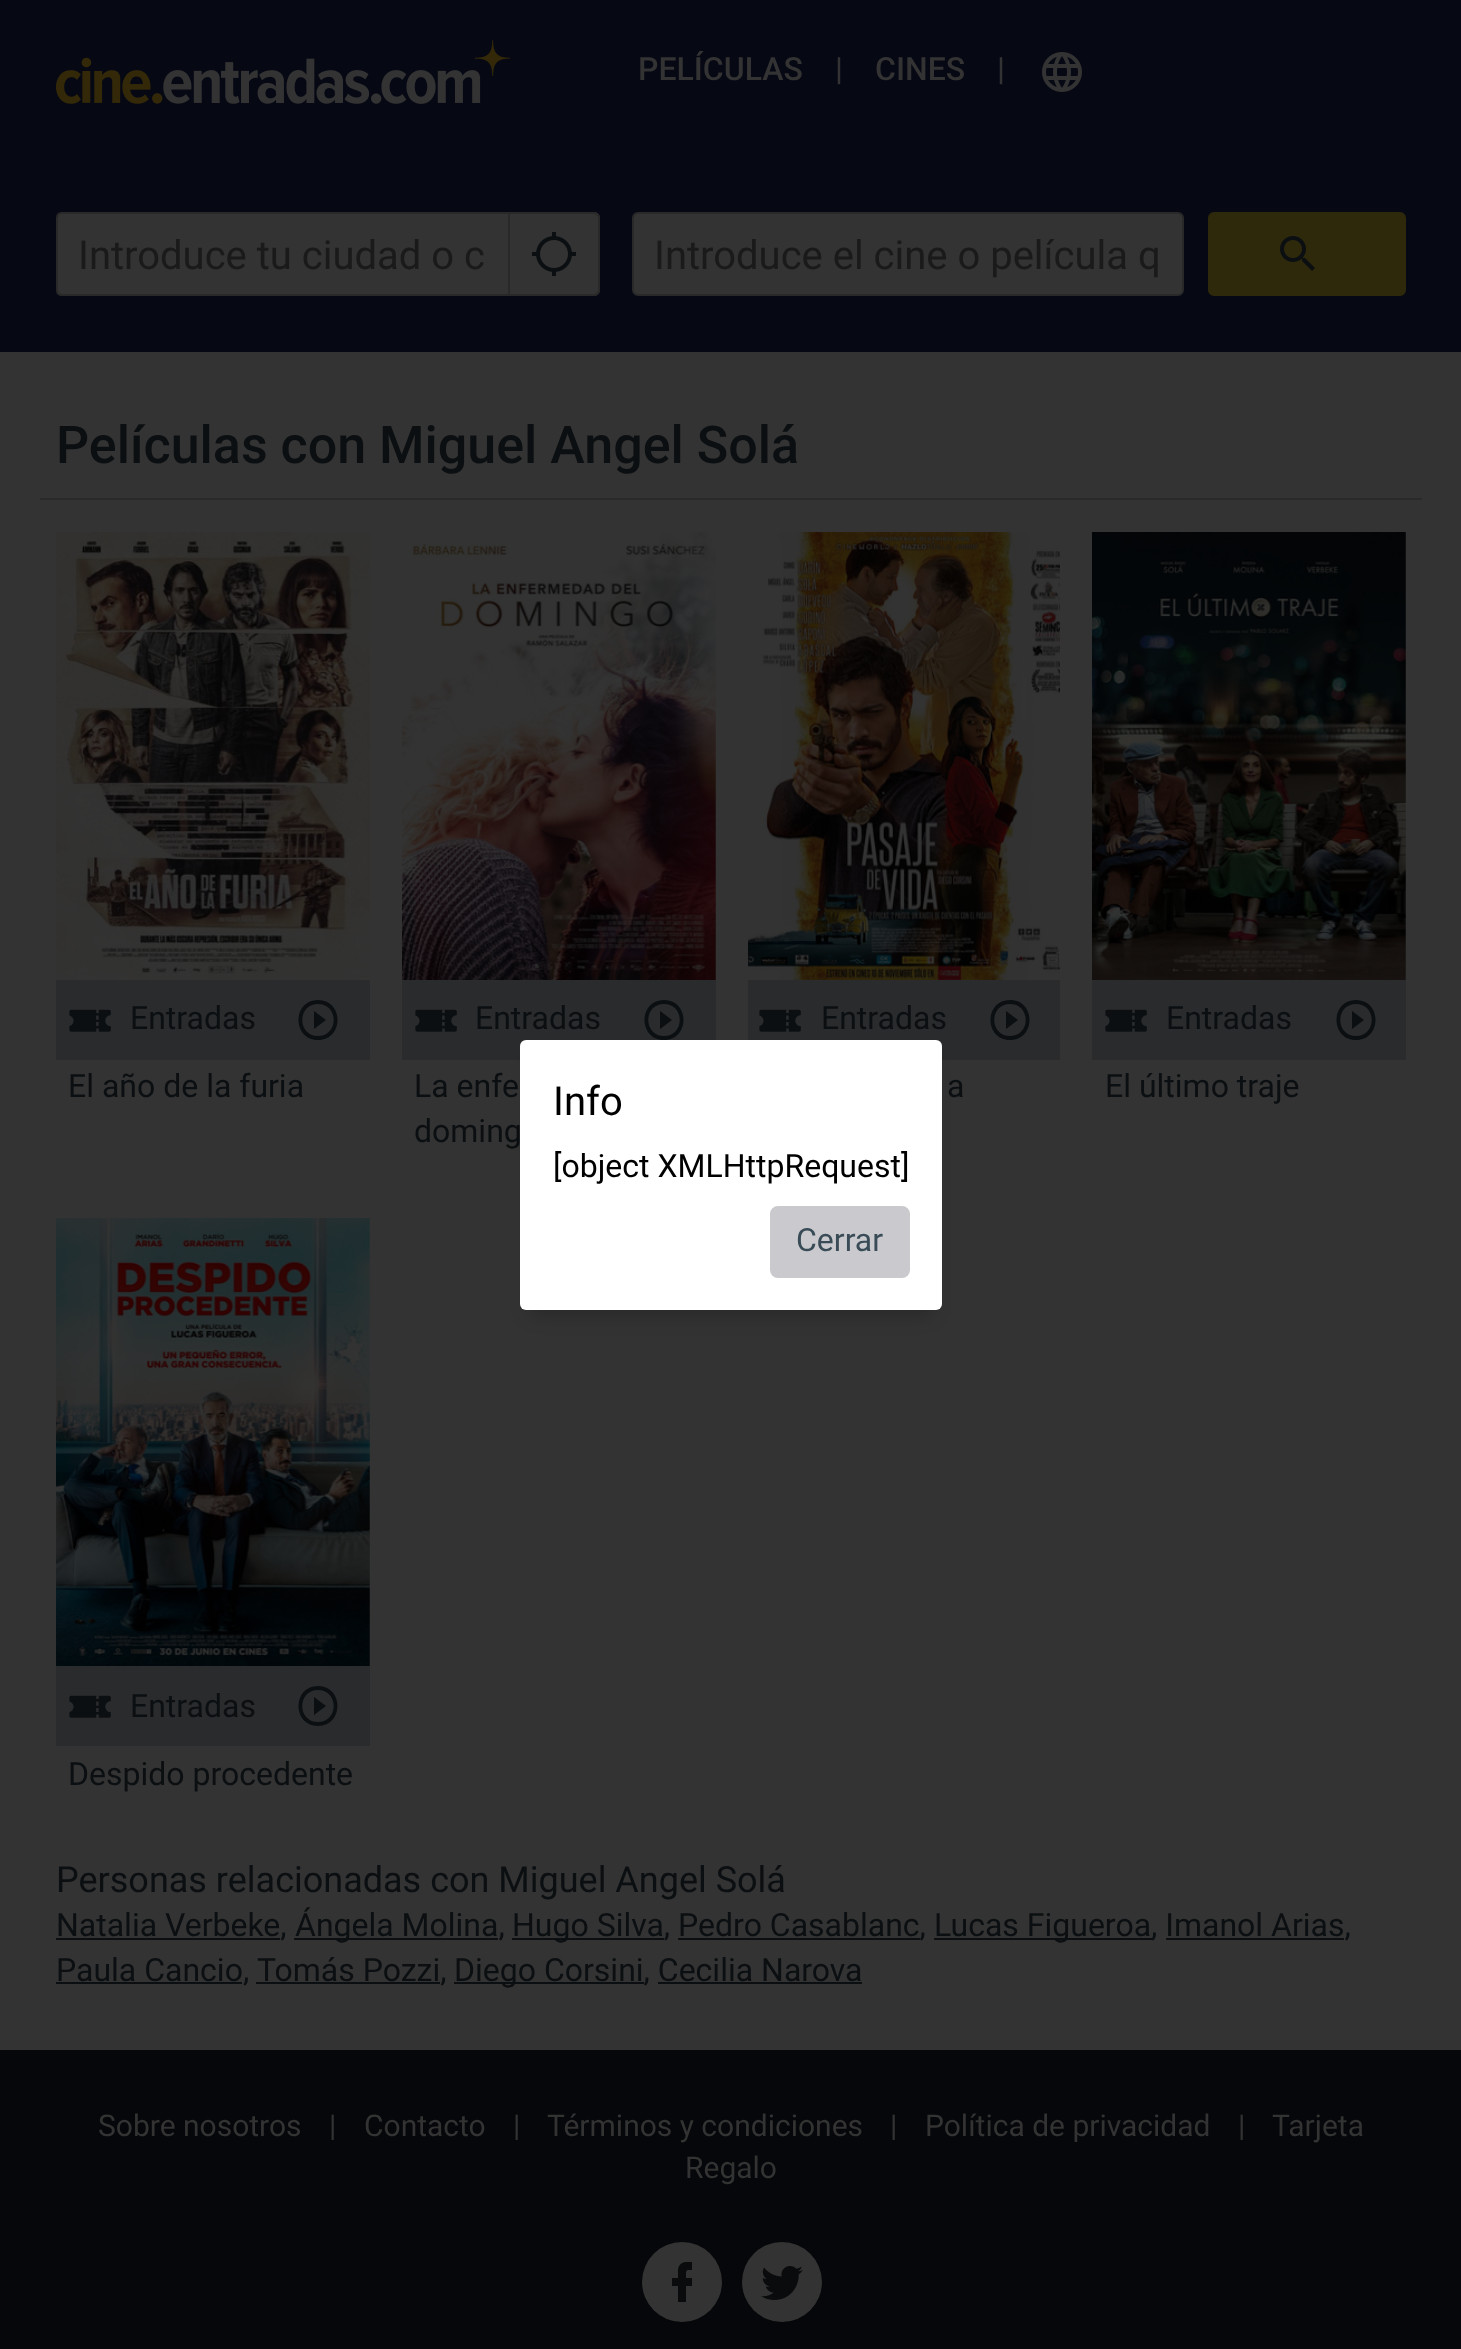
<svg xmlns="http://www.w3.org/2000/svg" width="1461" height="2349">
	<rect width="100%" height="100%" fill="#333333" />
	<rect x="0" y="0" width="1461" height="352" fill="#060814" />
	<image x="56" y="40" width="454" height="64" href="assets/img1.png" />
	<g font-family="Roboto" font-size="32" font-weight="500" fill="#333333">
		<text x="638" y="80">PELÍCULAS</text>
		<text x="835" y="80">|</text>
		<text x="875" y="80">CINES</text>
		<text x="997" y="80">|</text>
	</g>
	<image x="1042" y="52" width="40" height="40" href="assets/img2.png" />
	<path d="M62 213H509V295H62C59 295 57 293 57 290V218C57 215 59 213 62 213Z" fill="#333333" stroke="#292929" stroke-width="2" />
	<text x="78" y="269" font-family="Roboto" font-size="40" fill="#1A1A1A">Introduce tu ciudad o c</text>
	<path d="M510 212H594C597.5 212 600 214.5 600 218V290C600 293.5 597.5 296 594 296H510Z" fill="#333333" />
	<path d="M510 212H594C597 212 600 215 600 218V290C600 293 597 296 594 296H510ZM510 214H594C596 214 598 216 598 218V290C598 292 596 294 594 294H510Z" fill="#292929" fill-rule="evenodd" />
	<image x="532" y="232" width="44" height="44" href="assets/img3.png" />
	<rect x="633" y="213" width="550" height="82" rx="5" fill="#333333" stroke="#292929" stroke-width="2" />
	<text x="654" y="269" font-family="Roboto" font-size="40" fill="#1A1A1A">Introduce el cine o película q</text>
	<rect x="1209" y="213" width="196" height="82" rx="5" fill="#2F290C" stroke="#2F290C" stroke-width="2" />
	<image x="1280" y="236" width="35" height="35" href="assets/img4.png" />
	<rect x="40" y="498" width="1382" height="2" fill="#2A2A2B" />
	<text x="56" y="463" font-family="Roboto" font-size="52" font-weight="500" fill="#0B0F11">Películas con Miguel Angel Solá</text>
	<image x="56" y="532" width="314" height="448" href="assets/img5.png" />
	<rect x="56" y="980" width="314" height="80" fill="#2A2B2D" />
	<image x="69" y="1009" width="42" height="23" href="assets/img6.png" />
	<text x="130" y="1029" font-family="Roboto" font-size="32" fill="#0B0F11">Entradas</text>
	<path d="M314 1029L326 1020L314 1011ZM318 1000C292 1000 292 1040 318 1040C344 1040 344 1000 318 1000ZM318 1036C297 1036 297 1004 318 1004C339 1004 339 1036 318 1036Z" fill="#0B0F11" />
	<text x="68" y="1097" font-family="Roboto" font-size="32" fill="#0B0F11">El año de la furia</text>
	<image x="402" y="532" width="314" height="448" href="assets/img7.png" />
	<rect x="402" y="980" width="314" height="80" fill="#2A2B2D" />
	<image x="415" y="1009" width="42" height="23" href="assets/img6.png" />
	<text x="475" y="1029" font-family="Roboto" font-size="32" fill="#0B0F11">Entradas</text>
	<path d="M660 1029L672 1020L660 1011ZM664 1000C638 1000 638 1040 664 1040C690 1040 690 1000 664 1000ZM664 1036C643 1036 643 1004 664 1004C685 1004 685 1036 664 1036Z" fill="#0B0F11" />
	<g font-family="Roboto" font-size="32" fill="#0B0F11">
		<text x="414" y="1097">La enfe</text>
		<text x="414" y="1142">doming</text>
	</g>
	<image x="748" y="532" width="312" height="448" href="assets/img8.png" />
	<rect x="748" y="980" width="312" height="80" fill="#2A2B2D" />
	<image x="759" y="1009" width="42" height="23" href="assets/img6.png" />
	<text x="821" y="1029" font-family="Roboto" font-size="32" fill="#0B0F11">Entradas</text>
	<path d="M1006 1029L1018 1020L1006 1011ZM1010 1000C984 1000 984 1040 1010 1040C1036 1040 1036 1000 1010 1000ZM1010 1036C989 1036 989 1004 1010 1004C1031 1004 1031 1036 1010 1036Z" fill="#0B0F11" />
	<text x="947" y="1097" font-family="Roboto" font-size="32" fill="#0B0F11">a</text>
	<image x="1092" y="532" width="314" height="448" href="assets/img9.png" />
	<rect x="1092" y="980" width="314" height="80" fill="#2A2B2D" />
	<image x="1105" y="1009" width="42" height="23" href="assets/img6.png" />
	<text x="1166" y="1029" font-family="Roboto" font-size="32" fill="#0B0F11">Entradas</text>
	<path d="M1352 1029L1364 1020L1352 1011ZM1356 1000C1330 1000 1330 1040 1356 1040C1382 1040 1382 1000 1356 1000ZM1356 1036C1335 1036 1335 1004 1356 1004C1377 1004 1377 1036 1356 1036Z" fill="#0B0F11" />
	<text x="1105" y="1097" font-family="Roboto" font-size="32" fill="#0B0F11">El último traje</text>
	<image x="56" y="1218" width="314" height="448" href="assets/img10.png" />
	<rect x="56" y="1666" width="314" height="80" fill="#2A2B2D" />
	<image x="69" y="1695" width="42" height="23" href="assets/img6.png" />
	<text x="130" y="1717" font-family="Roboto" font-size="32" fill="#0B0F11">Entradas</text>
	<path d="M314 1715L326 1706L314 1697ZM318 1686C292 1686 292 1726 318 1726C344 1726 344 1686 318 1686ZM318 1722C297 1722 297 1690 318 1690C339 1690 339 1722 318 1722Z" fill="#0B0F11" />
	<text x="68" y="1785" font-family="Roboto" font-size="32" fill="#0B0F11">Despido procedente</text>
	<text x="56" y="1892" font-family="Roboto" font-size="36" fill="#0B0F11">Personas relacionadas con Miguel Angel Solá</text>
	<rect x="56" y="1938" width="224" height="2" fill="#0B0F11" />
	<text x="56" y="1936" font-family="Roboto" font-size="32" fill="#0B0F11">Natalia Verbeke,</text>
	<rect x="294" y="1938" width="204" height="2" fill="#0B0F11" />
	<text x="295" y="1936" font-family="Roboto" font-size="32" fill="#0B0F11">Ángela Molina,</text>
	<rect x="512" y="1938" width="152" height="2" fill="#0B0F11" />
	<text x="512" y="1936" font-family="Roboto" font-size="32" fill="#0B0F11">Hugo Silva, Pedro Casablanc,</text>
	<rect x="934" y="1938" width="218" height="2" fill="#0B0F11" />
	<text x="934" y="1936" font-family="Roboto" font-size="32" fill="#0B0F11">Lucas Figueroa, Imanol Arias,</text>
	<rect x="678" y="1938" width="242" height="2" fill="#0B0F11" />
	<rect x="1166" y="1938" width="178" height="2" fill="#0B0F11" />
	<rect x="56" y="1982" width="186" height="2" fill="#0B0F11" />
	<text x="56" y="1981" font-family="Roboto" font-size="32" fill="#0B0F11">Paula Cancio,</text>
	<rect x="256" y="1982" width="184" height="2" fill="#0B0F11" />
	<text x="257" y="1981" font-family="Roboto" font-size="32" fill="#0B0F11">Tomás Pozzi,</text>
	<rect x="454" y="1982" width="190" height="2" fill="#0B0F11" />
	<text x="454" y="1981" font-family="Roboto" font-size="32" fill="#0B0F11">Diego Corsini, Cecilia Narova</text>
	<rect x="658" y="1982" width="204" height="2" fill="#0B0F11" />
	<rect x="0" y="2050" width="1461" height="299" fill="#06070A" />
	<g font-family="Roboto" font-size="30" fill="#333333">
		<text x="98" y="2136">Sobre nosotros</text>
		<text x="329" y="2136">|</text>
		<text x="364" y="2136">Contacto</text>
		<text x="513" y="2136">|</text>
		<text x="547" y="2136">Términos y condiciones</text>
		<text x="890" y="2136">|</text>
		<text x="925" y="2136">Política de privacidad</text>
		<text x="1238" y="2136">|</text>
		<text x="1272" y="2136">Tarjeta</text>
		<text x="685" y="2178">Regalo</text>
	</g>
	<circle cx="682" cy="2282" r="40" fill="#333333" />
	<image x="672" y="2262" width="20" height="40" href="assets/img11.png" />
	<circle cx="782" cy="2282" r="40" fill="#333333" />
	<image x="761" y="2266" width="42" height="34" href="assets/img12.png" />
	<rect x="530" y="1066" width="402" height="250" fill="#000000" fill-opacity="0.2" filter="blur(9px)" />
	<rect x="520" y="1040" width="422" height="270" rx="6" fill="#FFFFFF" />
	<text x="553" y="1115" font-family="Roboto" font-size="40" fill="#000000">Info</text>
	<text x="553" y="1177" font-family="Roboto" font-size="32" fill="#000000">[object XMLHttpRequest]</text>
	<rect x="771" y="1207" width="138" height="70" rx="7" fill="#CACACE" stroke="#CACACE" stroke-width="2" />
	<text x="796" y="1251" font-family="Roboto" font-size="32" fill="#384B56">Cerrar</text>
</svg>
